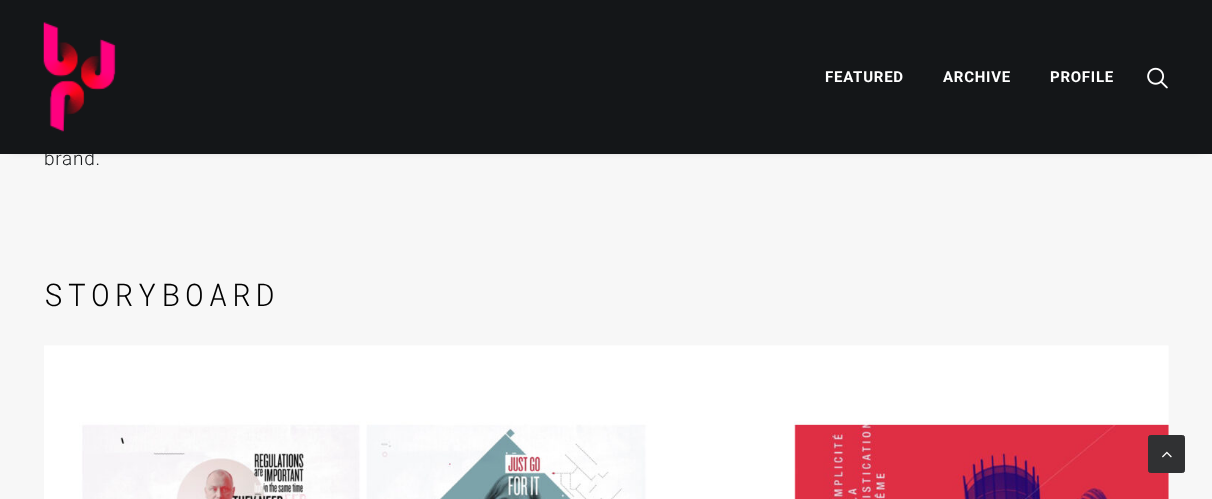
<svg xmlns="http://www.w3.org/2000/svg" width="1212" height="499">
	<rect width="100%" height="100%" fill="#F7F7F7" />
	<rect x="11" y="18" width="1190" height="128" fill="#000000" fill-opacity="0.6" filter="blur(6px)" />
	<rect x="0" y="0" width="1212" height="154" fill="#141618" />
	<image x="43" y="22" width="73" height="110" href="assets/img1.png" />
	<g font-family="Roboto" font-size="15" font-weight="700" letter-spacing="0.75" fill="#FFFFFF">
		<text x="825" y="82">FEATURED</text>
		<text x="943" y="82">ARCHIVE</text>
		<text x="1050" y="82">PROFILE</text>
	</g>
	<image x="1147" y="67" width="21" height="22" href="assets/img2.png" />
	<text x="44" y="165" font-family="Roboto" font-size="19" font-weight="300" letter-spacing="0.75" fill="#141618">brand.</text>
	<text x="44" y="306" font-family="Roboto Mono" font-size="31.25" font-weight="300" letter-spacing="4.75" fill="#000000">STORYBOARD</text>
	<image x="44" y="345" width="1125" height="154" href="assets/img3.png" />
	<rect x="1148.5" y="435.5" width="36" height="37" rx="2" fill="#303133" stroke="#303133" />
	<image x="1162" y="451" width="10" height="7" href="assets/img4.png" />
</svg>
